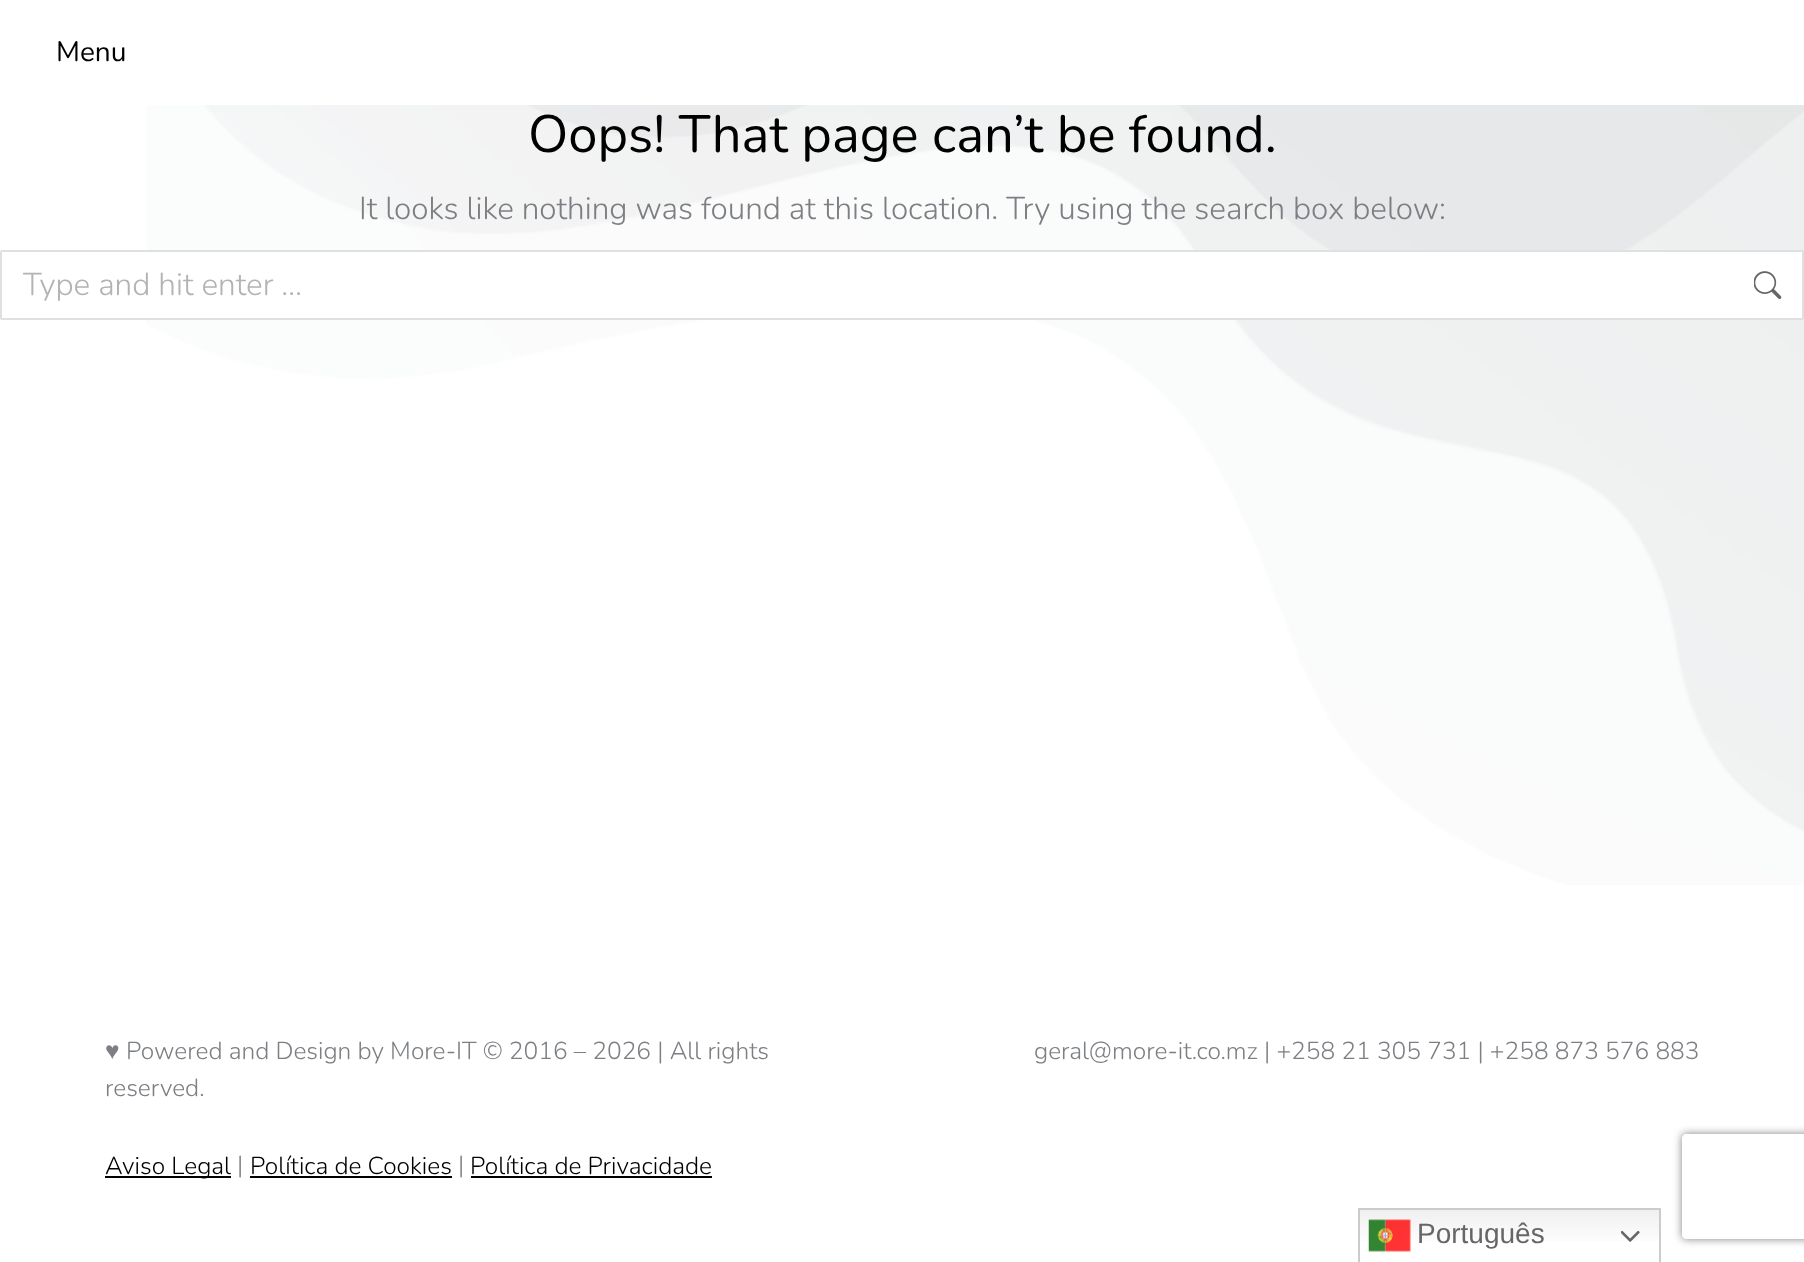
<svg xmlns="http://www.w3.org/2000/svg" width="1804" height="1262">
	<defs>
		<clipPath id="clip1"><path d="M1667 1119H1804V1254H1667ZM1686 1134H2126C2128 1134 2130 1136 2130 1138V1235C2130 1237 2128 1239 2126 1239H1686C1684 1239 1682 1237 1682 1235V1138C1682 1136 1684 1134 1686 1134Z" clip-rule="evenodd" /></clipPath>
		<linearGradient id="g1" gradientUnits="userSpaceOnUse" x1="1509" y1="1208" x2="1509" y2="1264"><stop offset="0" stop-color="#EFEFEF" /><stop offset="0.7" stop-color="#FFFFFF" /></linearGradient>
	</defs>
	<rect width="100%" height="100%" fill="#FFFFFF" />
	<image x="146" y="105" width="1658" height="780" href="assets/img1.png" />
	<text x="56" y="61" font-family="Nunito" font-size="28" fill="#000000">Menu</text>
	<text x="528" y="152" font-family="Nunito" font-size="52.5" fill="#000000">Oops! That page can’t be found.</text>
	<text x="359" y="219" font-family="Nunito" font-size="31.5" font-weight="300" fill="#7C7F83">It looks like nothing was found at this location. Try using the search box below:</text>
	<rect x="1" y="251" width="1802" height="68" rx="1" fill="#FFFFFF" stroke="#E0E0E0" stroke-width="2" />
	<text x="23" y="295" font-family="Nunito" font-size="31.5" font-weight="300" fill="#B3B3B3">Type and hit enter …</text>
	<image x="1754" y="271" width="28" height="28" href="assets/img2.png" />
	<text x="105" y="1059" font-family="Liberation Sans" font-size="24.5" fill="#7C7F83">♥</text>
	<g font-family="Nunito" font-size="24.5" font-weight="300" fill="#7C7F83">
		<text x="126" y="1059">Powered and Design by More-IT © 2016 – 2026 | All rights</text>
		<text x="105" y="1096">reserved.</text>
	</g>
	<rect x="105" y="1176" width="126" height="2" fill="#000000" />
	<text x="105" y="1174" font-family="Nunito" font-size="24.5" font-weight="300" fill="#000000">Aviso Legal</text>
	<text x="237" y="1173" font-family="Nunito" font-size="24.5" font-weight="300" fill="#7C7F83">|</text>
	<text x="250" y="1174" font-family="Nunito" font-size="24.5" font-weight="300" fill="#000000">Política de Cookies</text>
	<rect x="250" y="1176" width="202" height="2" fill="#000000" />
	<text x="458" y="1173" font-family="Nunito" font-size="24.5" font-weight="300" fill="#7C7F83">|</text>
	<text x="470" y="1174" font-family="Nunito" font-size="24.5" font-weight="300" fill="#000000">Política de Privacidade</text>
	<rect x="471" y="1176" width="241" height="2" fill="#000000" />
	<text x="1034" y="1059" font-family="Nunito" font-size="24.5" font-weight="300" fill="#7C7F83">geral@more-it.co.mz | +258 21 305 731 | +258 873 576 883</text>
	<g clip-path="url(#clip1)">
		<rect x="1682" y="1134" width="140" height="105" rx="4" fill="#808080" filter="blur(4.5px)" />
	</g>
	<rect x="1360" y="1210" width="299" height="31" fill="url(#g1)" />
	<rect x="1359" y="1209" width="301" height="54" fill="none" stroke="#CCCCCC" stroke-width="2" />
	<image x="1368" y="1219" width="43" height="33" href="assets/img3.png" />
	<text x="1417" y="1243" font-family="Liberation Sans" font-size="28" fill="#666666">Português</text>
	<image x="1621" y="1230" width="19" height="12" href="assets/img4.png" />
</svg>
